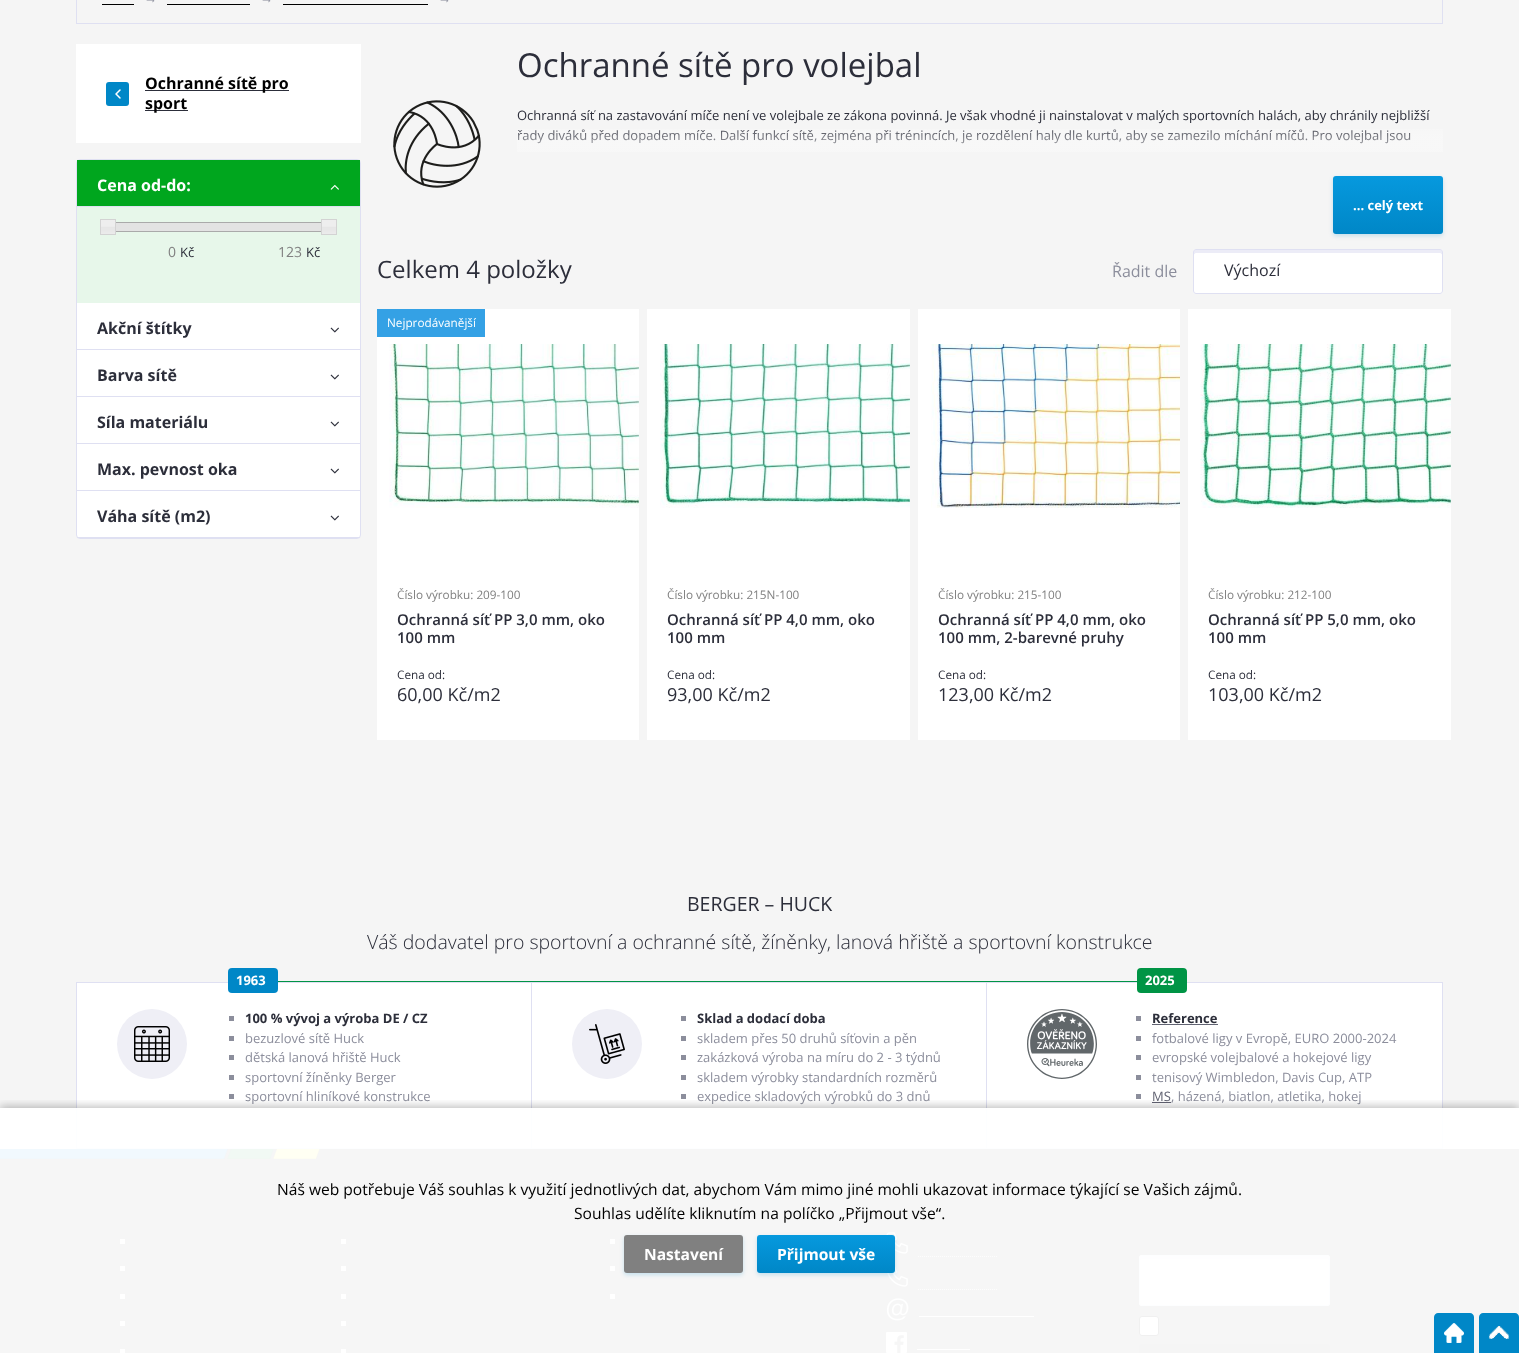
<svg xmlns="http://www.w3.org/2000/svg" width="1519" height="1353">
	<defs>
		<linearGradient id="g1" gradientUnits="userSpaceOnUse" x1="980" y1="126" x2="980" y2="166"><stop offset="0" stop-color="#FFFFFF" stop-opacity="0.1" /><stop offset="1" stop-color="#F5F5F5" /></linearGradient>
		<linearGradient id="g2" gradientUnits="userSpaceOnUse" x1="1388" y1="176" x2="1388" y2="234"><stop offset="0" stop-color="#0699DE" /><stop offset="1" stop-color="#0087C7" /></linearGradient>
		<linearGradient id="g3" gradientUnits="userSpaceOnUse" x1="1235" y1="1344" x2="1235" y2="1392"><stop offset="0" stop-color="#565A5C" /><stop offset="1" stop-color="#545B5E" /></linearGradient>
		<clipPath id="clip1"><rect x="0" y="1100" width="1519" height="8" /></clipPath>
		<linearGradient id="g4" gradientUnits="userSpaceOnUse" x1="826" y1="1235" x2="826" y2="1273"><stop offset="0" stop-color="#0699DE" /><stop offset="1" stop-color="#0087C7" /></linearGradient>
	</defs>
	<rect width="100%" height="100%" fill="#F5F5F5" />
	<rect x="1442" y="0" width="1" height="24" fill="#DFE0F2" />
	<rect x="76" y="23" width="1367" height="1" fill="#DFE0F2" />
	<rect x="76" y="0" width="1" height="24" fill="#DFE0F2" />
	<text x="144" y="3" font-family="Liberation Sans" font-size="13" fill="#8C8E9C">→</text>
	<rect x="102" y="4" width="32" height="1" fill="#000000" />
	<text x="260" y="3" font-family="Liberation Sans" font-size="13" fill="#8C8E9C">→</text>
	<rect x="167" y="4" width="83" height="1" fill="#000000" />
	<text x="438" y="3" font-family="Liberation Sans" font-size="13" fill="#8C8E9C">→</text>
	<rect x="283" y="4" width="145" height="1" fill="#000000" />
	<rect x="76" y="44" width="285" height="99" fill="#FFFFFF" />
	<rect x="106" y="82" width="23" height="24" rx="3" fill="#0087C7" />
	<image x="115" y="89" width="6" height="10" href="assets/img1.png" />
	<rect x="145" y="90" width="144" height="1" fill="#2C2E3A" />
	<text x="145" y="89" font-family="Open Sans" font-size="16" font-weight="700" fill="#000000">Ochranné sítě pro</text>
	<rect x="145" y="110" width="43" height="1" fill="#2C2E3A" />
	<text x="145" y="109" font-family="Open Sans" font-size="16" font-weight="700" fill="#000000">sport</text>
	<rect x="76.5" y="159.5" width="284" height="379" rx="3.5" fill="#FFFFFF" stroke="#DFE0F2" />
	<rect x="77" y="207" width="283" height="96" fill="#E7F7EA" />
	<rect x="77" y="160" width="283" height="46" fill="#00A61E" />
	<rect x="77" y="206" width="283" height="1" fill="#DFE0F2" />
	<text x="97" y="191" font-family="Open Sans" font-size="16" font-weight="700" fill="#FFFFFF">Cena od-do:</text>
	<image x="330" y="184" width="9" height="6" href="assets/img2.png" />
	<rect x="107.5" y="222.5" width="222" height="9" fill="none" stroke="#AAAAAA" />
	<rect x="108" y="223" width="221" height="8" fill="#E3E3E3" />
	<image x="101" y="220" width="14" height="14" href="assets/img3.png" />
	<rect x="100.5" y="219.5" width="15" height="15" fill="none" stroke="#D3D3D3" />
	<image x="322" y="220" width="14" height="14" href="assets/img3.png" />
	<rect x="321.5" y="219.5" width="15" height="15" fill="none" stroke="#D3D3D3" />
	<text x="168" y="257" font-family="Open Sans" font-size="14" fill="#808080">0</text>
	<text x="180" y="257" font-family="Open Sans" font-size="13" fill="#2C2E3A">Kč</text>
	<text x="278" y="257" font-family="Open Sans" font-size="14" fill="#808080">123</text>
	<text x="306" y="257" font-family="Open Sans" font-size="13" fill="#2C2E3A">Kč</text>
	<rect x="77" y="349" width="283" height="1" fill="#DFE0F2" />
	<text x="97" y="334" font-family="Open Sans" font-size="16" font-weight="700" fill="#2C2E3A">Akční štítky</text>
	<image x="330" y="327" width="9" height="6" href="assets/img4.png" />
	<rect x="77" y="396" width="283" height="1" fill="#DFE0F2" />
	<text x="97" y="381" font-family="Open Sans" font-size="16" font-weight="700" fill="#2C2E3A">Barva sítě</text>
	<image x="330" y="374" width="9" height="6" href="assets/img4.png" />
	<rect x="77" y="443" width="283" height="1" fill="#DFE0F2" />
	<text x="97" y="428" font-family="Open Sans" font-size="16" font-weight="700" fill="#2C2E3A">Síla materiálu</text>
	<image x="330" y="421" width="9" height="6" href="assets/img4.png" />
	<rect x="77" y="490" width="283" height="1" fill="#DFE0F2" />
	<text x="97" y="475" font-family="Open Sans" font-size="16" font-weight="700" fill="#2C2E3A">Max. pevnost oka</text>
	<image x="330" y="468" width="9" height="6" href="assets/img4.png" />
	<rect x="77" y="537" width="283" height="1" fill="#DFE0F2" />
	<text x="97" y="522" font-family="Open Sans" font-size="16" font-weight="700" fill="#2C2E3A">Váha sítě (m2)</text>
	<image x="330" y="515" width="9" height="6" href="assets/img4.png" />
	<image x="393" y="100" width="88" height="88" href="assets/img5.png" />
	<text x="517" y="77" font-family="Open Sans" font-size="33" fill="#2C2E3A">Ochranné sítě pro volejbal</text>
	<g font-family="Open Sans" font-size="13" fill="#2C2E3A">
		<text x="517" y="120">Ochranná síť na zastavování míče není ve volejbale ze zákona povinná. Je však vhodné ji nainstalovat v malých sportovních halách, aby chránily nejbližší</text>
		<text x="517" y="140">řady diváků před dopadem míče. Další funkcí sítě, zejména při trénincích, je rozdělení haly dle kurtů, aby se zamezilo míchání míčů. Pro volejbal jsou</text>
	</g>
	<rect x="517" y="129" width="926" height="23" fill="url(#g1)" />
	<rect x="1333" y="178" width="110" height="58" rx="3" fill="#0087C7" fill-opacity="0.2" filter="blur(2px)" />
	<rect x="1333" y="176" width="110" height="58" rx="3" fill="url(#g2)" />
	<text x="1353" y="210" font-family="Open Sans" font-size="13" font-weight="700" fill="#FFFFFF">... celý text</text>
	<text x="377" y="278" font-family="Open Sans" font-size="24" fill="#2C2E3A">Celkem 4 položky</text>
	<text x="1112" y="277" font-family="Open Sans" font-size="16" fill="#8C8E9C">Řadit dle</text>
	<rect x="1193" y="249" width="250" height="45" rx="3" fill="#FFFFFF" />
	<path d="M1196 253H1440C1441 253 1442 254 1442 255C1442 253 1443 250 1440 250H1196C1193 250 1194 253 1194 255C1194 254 1195 253 1196 253Z" fill="#ECECF7" />
	<rect x="1193.5" y="249.5" width="249" height="44" rx="2.5" fill="none" stroke="#DFE0F2" />
	<text x="1224" y="276" font-family="Open Sans" font-size="16" fill="#2C2E3A">Výchozí</text>
	<rect x="377" y="309" width="262" height="431" fill="#FFFFFF" />
	<rect x="377" y="309" width="108" height="28" fill="#34A1E5" />
	<text x="387" y="327" font-family="Open Sans" font-size="11.75" fill="#FFFFFF">Nejprodávanější</text>
	<image x="389" y="344" width="250" height="164" href="assets/img6.png" />
	<text x="397" y="599" font-family="Open Sans" font-size="11.75" fill="#808080">Číslo výrobku: 209-100</text>
	<g font-family="Open Sans" font-size="15" font-weight="600" fill="#2C2E3A">
		<text x="397" y="625">Ochranná síť PP 3,0 mm, oko</text>
		<text x="397" y="643">100 mm</text>
	</g>
	<text x="397" y="679" font-family="Open Sans" font-size="11.75" fill="#2C2E3A">Cena od:</text>
	<text x="397" y="701" font-family="Open Sans" font-size="18" fill="#2C2E3A">60,00 Kč/m2</text>
	<rect x="647" y="309" width="263" height="431" fill="#FFFFFF" />
	<image x="660" y="344" width="250" height="164" href="assets/img7.png" />
	<text x="667" y="599" font-family="Open Sans" font-size="11.75" fill="#808080">Číslo výrobku: 215N-100</text>
	<g font-family="Open Sans" font-size="15" font-weight="600" fill="#2C2E3A">
		<text x="667" y="625">Ochranná síť PP 4,0 mm, oko</text>
		<text x="667" y="643">100 mm</text>
	</g>
	<text x="667" y="679" font-family="Open Sans" font-size="11.75" fill="#2C2E3A">Cena od:</text>
	<text x="667" y="701" font-family="Open Sans" font-size="18" fill="#2C2E3A">93,00 Kč/m2</text>
	<rect x="918" y="309" width="262" height="431" fill="#FFFFFF" />
	<image x="931" y="344" width="249" height="164" href="assets/img8.png" />
	<text x="938" y="599" font-family="Open Sans" font-size="11.75" fill="#808080">Číslo výrobku: 215-100</text>
	<g font-family="Open Sans" font-size="15" font-weight="600" fill="#2C2E3A">
		<text x="938" y="625">Ochranná síť PP 4,0 mm, oko</text>
		<text x="938" y="643">100 mm, 2-barevné pruhy</text>
	</g>
	<text x="938" y="679" font-family="Open Sans" font-size="11.75" fill="#2C2E3A">Cena od:</text>
	<text x="938" y="701" font-family="Open Sans" font-size="18" fill="#2C2E3A">123,00 Kč/m2</text>
	<rect x="1188" y="309" width="263" height="431" fill="#FFFFFF" />
	<image x="1200" y="344" width="251" height="164" href="assets/img9.png" />
	<text x="1208" y="599" font-family="Open Sans" font-size="11.75" fill="#808080">Číslo výrobku: 212-100</text>
	<g font-family="Open Sans" font-size="15" font-weight="600" fill="#2C2E3A">
		<text x="1208" y="625">Ochranná síť PP 5,0 mm, oko</text>
		<text x="1208" y="643">100 mm</text>
	</g>
	<text x="1208" y="679" font-family="Open Sans" font-size="11.75" fill="#2C2E3A">Cena od:</text>
	<text x="1208" y="701" font-family="Open Sans" font-size="18" fill="#2C2E3A">103,00 Kč/m2</text>
	<text x="687" y="911" font-family="Open Sans" font-size="19.5" fill="#2C2E3A">BERGER – HUCK</text>
	<text x="367" y="949" font-family="Open Sans" font-size="19.5" font-weight="300" fill="#2C2E3A">Váš dodavatel pro sportovní a ochranné sítě, žíněnky, lanová hřiště a sportovní konstrukce</text>
	<rect x="278" y="981" width="859" height="1" fill="#009445" />
	<rect x="76.5" y="982.5" width="1366" height="166" fill="#FFFFFF" stroke="#DFE0F2" />
	<rect x="228" y="968" width="50" height="25" rx="4" fill="#0087C7" />
	<text x="236" y="985" font-family="Open Sans" font-size="13" font-weight="700" fill="#FFFFFF">1963</text>
	<rect x="1137" y="968" width="50" height="25" rx="4" fill="#009445" />
	<text x="1145" y="985" font-family="Open Sans" font-size="13" font-weight="700" fill="#FFFFFF">2025</text>
	<rect x="531" y="983" width="1" height="165" fill="#DFE0F2" />
	<circle cx="152" cy="1044" r="35" fill="#EFEFF6" />
	<image x="134" y="1026" width="36" height="36" href="assets/img10.png" />
	<rect x="229" y="1016" width="5" height="5" fill="#8C8E9C" />
	<text x="245" y="1023" font-family="Open Sans" font-size="13" font-weight="700" fill="#2C2E3A">100 % vývoj a výroba DE / CZ</text>
	<rect x="229" y="1036" width="5" height="5" fill="#8C8E9C" />
	<text x="245" y="1043" font-family="Open Sans" font-size="13" fill="#8C8E9C">bezuzlové sítě Huck</text>
	<rect x="229" y="1055" width="5" height="5" fill="#8C8E9C" />
	<text x="245" y="1062" font-family="Open Sans" font-size="13" fill="#8C8E9C">dětská lanová hřiště Huck</text>
	<rect x="229" y="1075" width="5" height="5" fill="#8C8E9C" />
	<text x="245" y="1082" font-family="Open Sans" font-size="13" fill="#8C8E9C">sportovní žíněnky Berger</text>
	<rect x="229" y="1094" width="5" height="5" fill="#8C8E9C" />
	<text x="245" y="1101" font-family="Open Sans" font-size="13" fill="#8C8E9C">sportovní hliníkové konstrukce</text>
	<rect x="986" y="983" width="1" height="165" fill="#DFE0F2" />
	<circle cx="607" cy="1044" r="35" fill="#EFEFF6" />
	<image x="589" y="1024" width="36" height="40" href="assets/img11.png" />
	<rect x="681" y="1016" width="5" height="5" fill="#8C8E9C" />
	<text x="697" y="1023" font-family="Open Sans" font-size="13" font-weight="700" fill="#2C2E3A">Sklad a dodací doba</text>
	<rect x="681" y="1036" width="5" height="5" fill="#8C8E9C" />
	<text x="697" y="1043" font-family="Open Sans" font-size="13" fill="#8C8E9C">skladem přes 50 druhů síťovin a pěn</text>
	<rect x="681" y="1055" width="5" height="5" fill="#8C8E9C" />
	<text x="697" y="1062" font-family="Open Sans" font-size="13" fill="#8C8E9C">zakázková výroba na míru do 2 - 3 týdnů</text>
	<rect x="681" y="1075" width="5" height="5" fill="#8C8E9C" />
	<text x="697" y="1082" font-family="Open Sans" font-size="13" fill="#8C8E9C">skladem výrobky standardních rozměrů</text>
	<rect x="681" y="1094" width="5" height="5" fill="#8C8E9C" />
	<text x="697" y="1101" font-family="Open Sans" font-size="13" fill="#8C8E9C">expedice skladových výrobků do 3 dnů</text>
	<image x="1027" y="1009" width="70" height="70" href="assets/img12.png" />
	<rect x="1136" y="1016" width="5" height="5" fill="#8C8E9C" />
	<text x="1152" y="1023" font-family="Open Sans" font-size="13" font-weight="700" fill="#2C2E3A">Reference</text>
	<rect x="1152" y="1024" width="66" height="1" fill="#616372" />
	<rect x="1136" y="1036" width="5" height="5" fill="#8C8E9C" />
	<text x="1152" y="1043" font-family="Open Sans" font-size="13" fill="#8C8E9C">fotbalové ligy v Evropě, EURO 2000-2024</text>
	<rect x="1136" y="1055" width="5" height="5" fill="#8C8E9C" />
	<text x="1152" y="1062" font-family="Open Sans" font-size="13" fill="#8C8E9C">evropské volejbalové a hokejové ligy</text>
	<rect x="1136" y="1075" width="5" height="5" fill="#8C8E9C" />
	<text x="1152" y="1082" font-family="Open Sans" font-size="13" fill="#8C8E9C">tenisový Wimbledon, Davis Cup, ATP</text>
	<rect x="1136" y="1094" width="5" height="5" fill="#8C8E9C" />
	<text x="1152" y="1101" font-family="Open Sans" font-size="13" fill="#616372">MS</text>
	<rect x="1152" y="1102" width="19" height="1" fill="#616372" />
	<text x="1171" y="1101" font-family="Open Sans" font-size="13" fill="#8C8E9C">, házená, biatlon, atletika, hokej</text>
	<rect x="0" y="1149" width="1519" height="204" fill="#61676A" />
	<image x="0" y="1149" width="320" height="10" href="assets/img13.png" />
	<rect x="120" y="1239" width="5" height="5" fill="#FFFFFF" />
	<rect x="120" y="1266" width="5" height="5" fill="#FFFFFF" />
	<rect x="120" y="1294" width="5" height="5" fill="#FFFFFF" />
	<rect x="120" y="1321" width="5" height="5" fill="#FFFFFF" />
	<rect x="120" y="1349" width="5" height="4" fill="#FFFFFF" />
	<rect x="341" y="1239" width="5" height="5" fill="#FFFFFF" />
	<rect x="341" y="1266" width="5" height="5" fill="#FFFFFF" />
	<rect x="341" y="1294" width="5" height="5" fill="#FFFFFF" />
	<rect x="341" y="1321" width="5" height="5" fill="#FFFFFF" />
	<rect x="341" y="1349" width="5" height="4" fill="#FFFFFF" />
	<rect x="610" y="1239" width="5" height="5" fill="#FFFFFF" />
	<rect x="610" y="1266" width="5" height="5" fill="#FFFFFF" />
	<rect x="610" y="1294" width="5" height="5" fill="#FFFFFF" />
	<image x="886" y="1232" width="22" height="22" href="assets/img14.png" />
	<path d="M918 1256.5H997" fill="none" stroke="#D8D8D8" stroke-dasharray="1 1" />
	<image x="887" y="1266" width="21" height="21" href="assets/img15.png" />
	<path d="M918 1289.5H997" fill="none" stroke="#D8D8D8" stroke-dasharray="1 1" />
	<image x="886" y="1298" width="23" height="23" href="assets/img16.png" />
	<rect x="919" y="1316" width="115" height="1" fill="#FFFFFF" />
	<image x="886" y="1332" width="21" height="21" href="assets/img17.png" />
	<rect x="917" y="1349" width="53" height="1" fill="#FFFFFF" />
	<rect x="1139" y="1255" width="191" height="51" rx="3" fill="#FFFFFF" />
	<path d="M1142 1259H1327C1328 1259 1329 1260 1329 1261C1329 1259 1330 1256 1327 1256H1141C1139 1257 1140 1260 1140 1261C1140 1260 1141 1259 1142 1259Z" fill="#ECECF7" />
	<rect x="1139.5" y="1255.5" width="190" height="50" rx="2.5" fill="none" stroke="#DFE0F2" />
	<rect x="1139.5" y="1316.5" width="19" height="19" rx="2.5" fill="#F9F9FD" stroke="#000000" />
	<rect x="1139" y="1344" width="191" height="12" rx="3" fill="url(#g3)" />
	<g clip-path="url(#clip1)">
		<rect x="0" y="1106" width="1519" height="245" fill="#000000" fill-opacity="0.25" filter="blur(4px)" />
	</g>
	<rect x="0" y="1108" width="1519" height="245" fill="#FFFFFF" fill-opacity="0.94" />
	<g font-family="Open Sans" font-size="15.6" fill="#000000">
		<text x="277" y="1195">Náš web potřebuje Váš souhlas k využití jednotlivých dat, abychom Vám mimo jiné mohli ukazovat informace týkající se Vašich zájmů.</text>
		<text x="574" y="1219">Souhlas udělíte kliknutím na políčko „Přijmout vše“.</text>
	</g>
	<rect x="624" y="1237" width="119" height="38" rx="3" fill="#0087C7" fill-opacity="0.2" filter="blur(2px)" />
	<rect x="624" y="1235" width="119" height="38" rx="3" fill="#808080" />
	<text x="644" y="1260" font-family="Open Sans" font-size="15.6" font-weight="700" fill="#FFFFFF">Nastavení</text>
	<rect x="757" y="1237" width="138" height="38" rx="3" fill="#0087C7" fill-opacity="0.2" filter="blur(2px)" />
	<rect x="757" y="1235" width="138" height="38" rx="3" fill="url(#g4)" />
	<text x="777" y="1260" font-family="Open Sans" font-size="15.6" font-weight="700" fill="#FFFFFF">Přijmout vše</text>
	<path d="M1438 1313H1470C1472 1313 1474 1315 1474 1317V1353H1434V1317C1434 1315 1436 1313 1438 1313Z" fill="#0087C7" />
	<image x="1444" y="1323" width="20" height="20" href="assets/img18.png" />
	<path d="M1483 1313H1515C1517 1313 1519 1315 1519 1317V1353H1479V1317C1479 1315 1481 1313 1483 1313Z" fill="#0087C7" />
	<image x="1488" y="1326" width="22" height="13" href="assets/img19.png" />
</svg>
